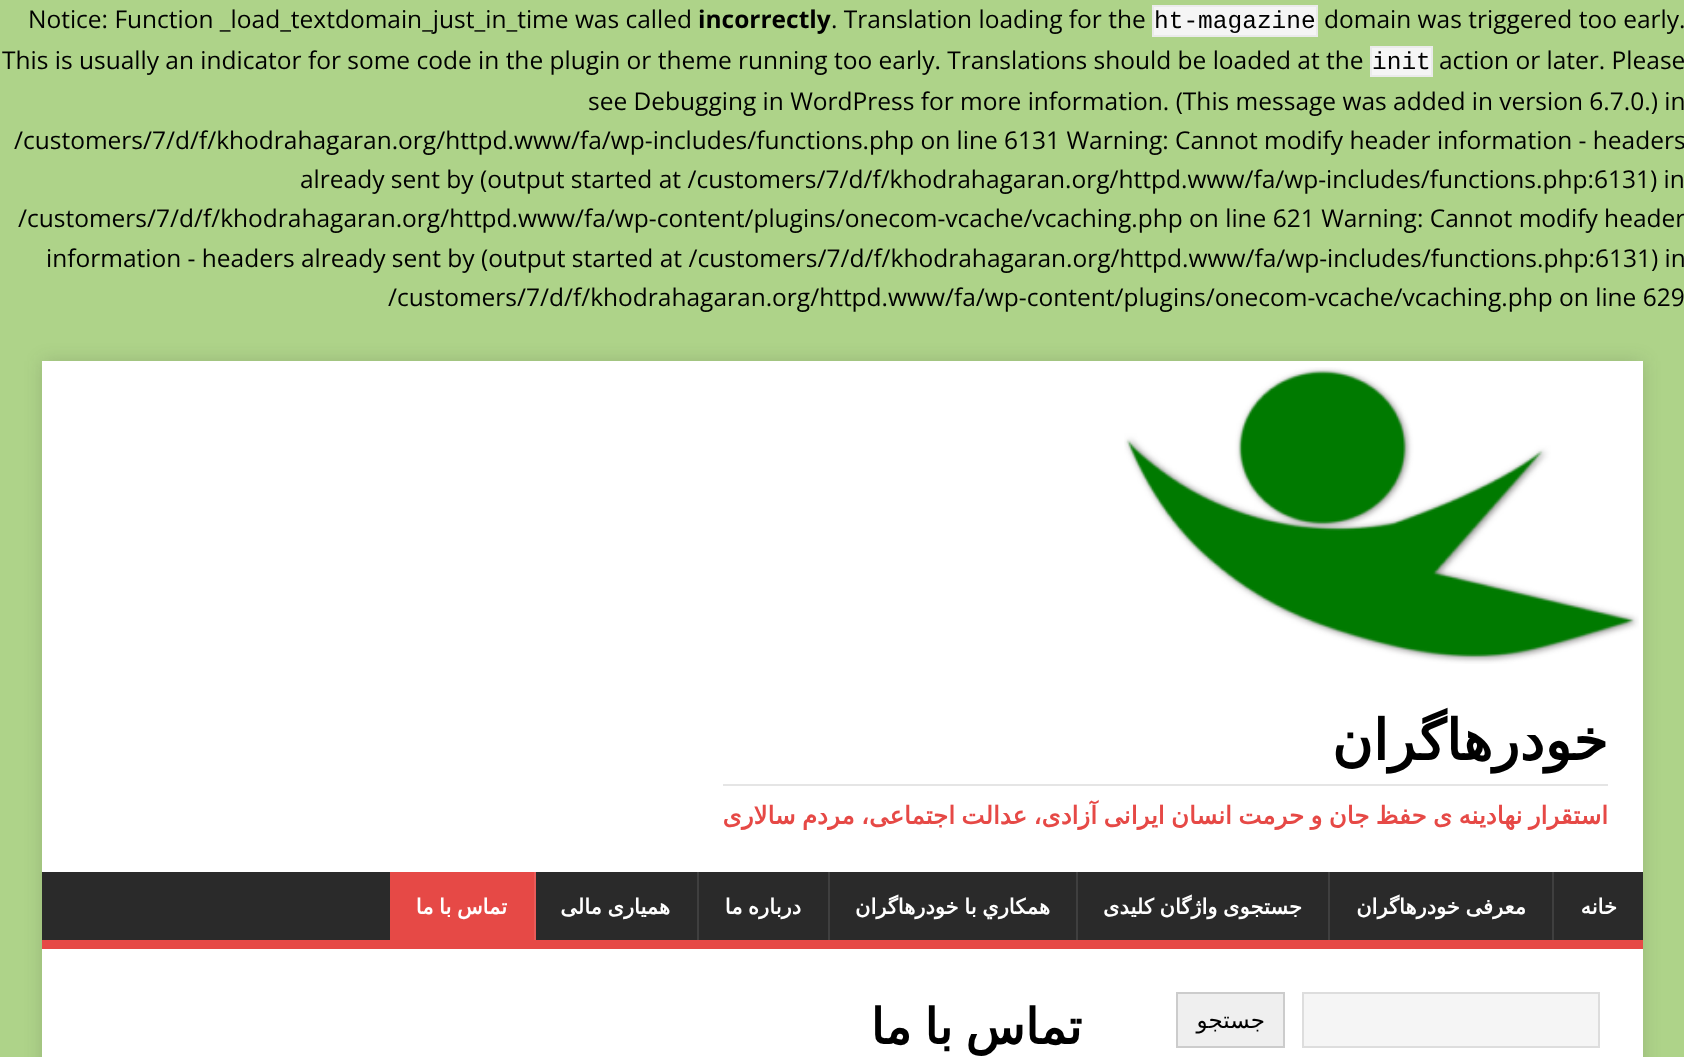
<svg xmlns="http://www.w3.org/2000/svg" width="1684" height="1057">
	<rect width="100%" height="100%" fill="#AED389" />
	<text x="28" y="28" font-family="Open Sans" font-size="24.5" fill="#000000">Notice: Function _load_textdomain_just_in_time was called</text>
	<text x="698" y="28" font-family="Open Sans" font-size="24.5" font-weight="700" fill="#000000">incorrectly</text>
	<text x="831" y="28" font-family="Open Sans" font-size="24.5" fill="#000000">. Translation loading for the</text>
	<rect x="1153" y="6" width="164" height="30" fill="#F5F5F5" stroke="#EBEBEB" stroke-width="2" />
	<text x="1154" y="28" font-family="Liberation Mono" font-size="24.5" fill="#000000">ht-magazine</text>
	<g font-family="Open Sans" font-size="24.5" fill="#000000">
		<text x="1324" y="28">domain was triggered too early.</text>
		<text x="2" y="69">This is usually an indicator for some code in the plugin or theme running too early. Translations should be loaded at the</text>
	</g>
	<rect x="1371" y="47" width="61" height="29" fill="#F5F5F5" stroke="#EBEBEB" stroke-width="2" />
	<text x="1372" y="69" font-family="Liberation Mono" font-size="24.5" fill="#000000">init</text>
	<g font-family="Open Sans" font-size="24.5" fill="#000000">
		<text x="1439" y="69">action or later. Please</text>
		<text x="588" y="110">see Debugging in WordPress for more information. (This message was added in version 6.7.0.) in</text>
		<text x="14" y="149">/customers/7/d/f/khodrahagaran.org/httpd.www/fa/wp-includes/functions.php on line 6131 Warning: Cannot modify header information - headers</text>
		<text x="300" y="188">already sent by (output started at /customers/7/d/f/khodrahagaran.org/httpd.www/fa/wp-includes/functions.php:6131) in</text>
		<text x="18" y="227">/customers/7/d/f/khodrahagaran.org/httpd.www/fa/wp-content/plugins/onecom-vcache/vcaching.php on line 621 Warning: Cannot modify header</text>
		<text x="46" y="267">information - headers already sent by (output started at /customers/7/d/f/khodrahagaran.org/httpd.www/fa/wp-includes/functions.php:6131) in</text>
		<text x="388" y="306">/customers/7/d/f/khodrahagaran.org/httpd.www/fa/wp-content/plugins/onecom-vcache/vcaching.php on line 629</text>
	</g>
	<rect x="42" y="361" width="1601" height="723" fill="#323232" fill-opacity="0.17" filter="blur(9px)" />
	<rect x="42" y="361" width="1601" height="511" fill="#FFFFFF" />
	<image x="1124" y="367" width="515" height="297" href="assets/img1.png" />
	<text x="1608" y="760" font-family="DejaVu Sans" font-size="56" font-weight="700" direction="rtl" fill="#000000">خودرهاگران</text>
	<rect x="723" y="784" width="885" height="2" fill="#E5E5E5" />
	<text x="1608" y="824" word-spacing="-1.4" font-family="DejaVu Sans" font-size="24.5" font-weight="700" direction="rtl" fill="#E64946">استقرار نهادینه ی حفظ جان و حرمت انسان ایرانی آزادی، عدالت اجتماعی، مردم سالاری</text>
	<rect x="42" y="872" width="1601" height="68" fill="#2A2A2A" />
	<rect x="42" y="940" width="1601" height="9" fill="#E64946" />
	<rect x="390" y="872" width="144" height="68" fill="#E64946" />
	<rect x="534" y="872" width="2" height="68" fill="#E95B59" />
	<text x="507" y="914" word-spacing="-1" font-family="DejaVu Sans" font-size="21" font-weight="700" direction="rtl" fill="#FFFFFF">تماس با ما</text>
	<rect x="697" y="872" width="2" height="68" fill="#3F3F3F" />
	<text x="670" y="914" word-spacing="-1" font-family="DejaVu Sans" font-size="21" font-weight="700" direction="rtl" fill="#FFFFFF">همیاری مالی</text>
	<rect x="828" y="872" width="2" height="68" fill="#3F3F3F" />
	<text x="801" y="914" word-spacing="-1" font-family="DejaVu Sans" font-size="21" font-weight="700" direction="rtl" fill="#FFFFFF">درباره ما</text>
	<rect x="1076" y="872" width="2" height="68" fill="#3F3F3F" />
	<text x="1050" y="914" word-spacing="-1" font-family="DejaVu Sans" font-size="21" font-weight="700" direction="rtl" fill="#FFFFFF">همکاري با خودرهاگران</text>
	<rect x="1328" y="872" width="2" height="68" fill="#3F3F3F" />
	<text x="1302" y="914" word-spacing="-1" font-family="DejaVu Sans" font-size="21" font-weight="700" direction="rtl" fill="#FFFFFF">جستجوی واژگان کلیدی</text>
	<rect x="1552" y="872" width="2" height="68" fill="#3F3F3F" />
	<g font-family="DejaVu Sans" font-size="21" font-weight="700" direction="rtl" fill="#FFFFFF">
		<text x="1526" y="914" word-spacing="-1">معرفی خودرهاگران</text>
		<text x="1617" y="914">خانه</text>
	</g>
	<rect x="42" y="949" width="1601" height="108" fill="#FFFFFF" />
	<text x="1082" y="1044" word-spacing="-3" font-family="DejaVu Sans" font-size="49" font-weight="700" direction="rtl" fill="#000000">تماس با ما</text>
	<rect x="1177" y="993" width="107" height="54" fill="#EFEFEF" stroke="#CCCCCC" stroke-width="2" />
	<text x="1265" y="1028" font-family="DejaVu Sans" font-size="23" direction="rtl" fill="#000000">جستجو</text>
	<rect x="1303" y="993" width="296" height="54" fill="#F5F5F5" stroke="#DDDDDD" stroke-width="2" />
</svg>
